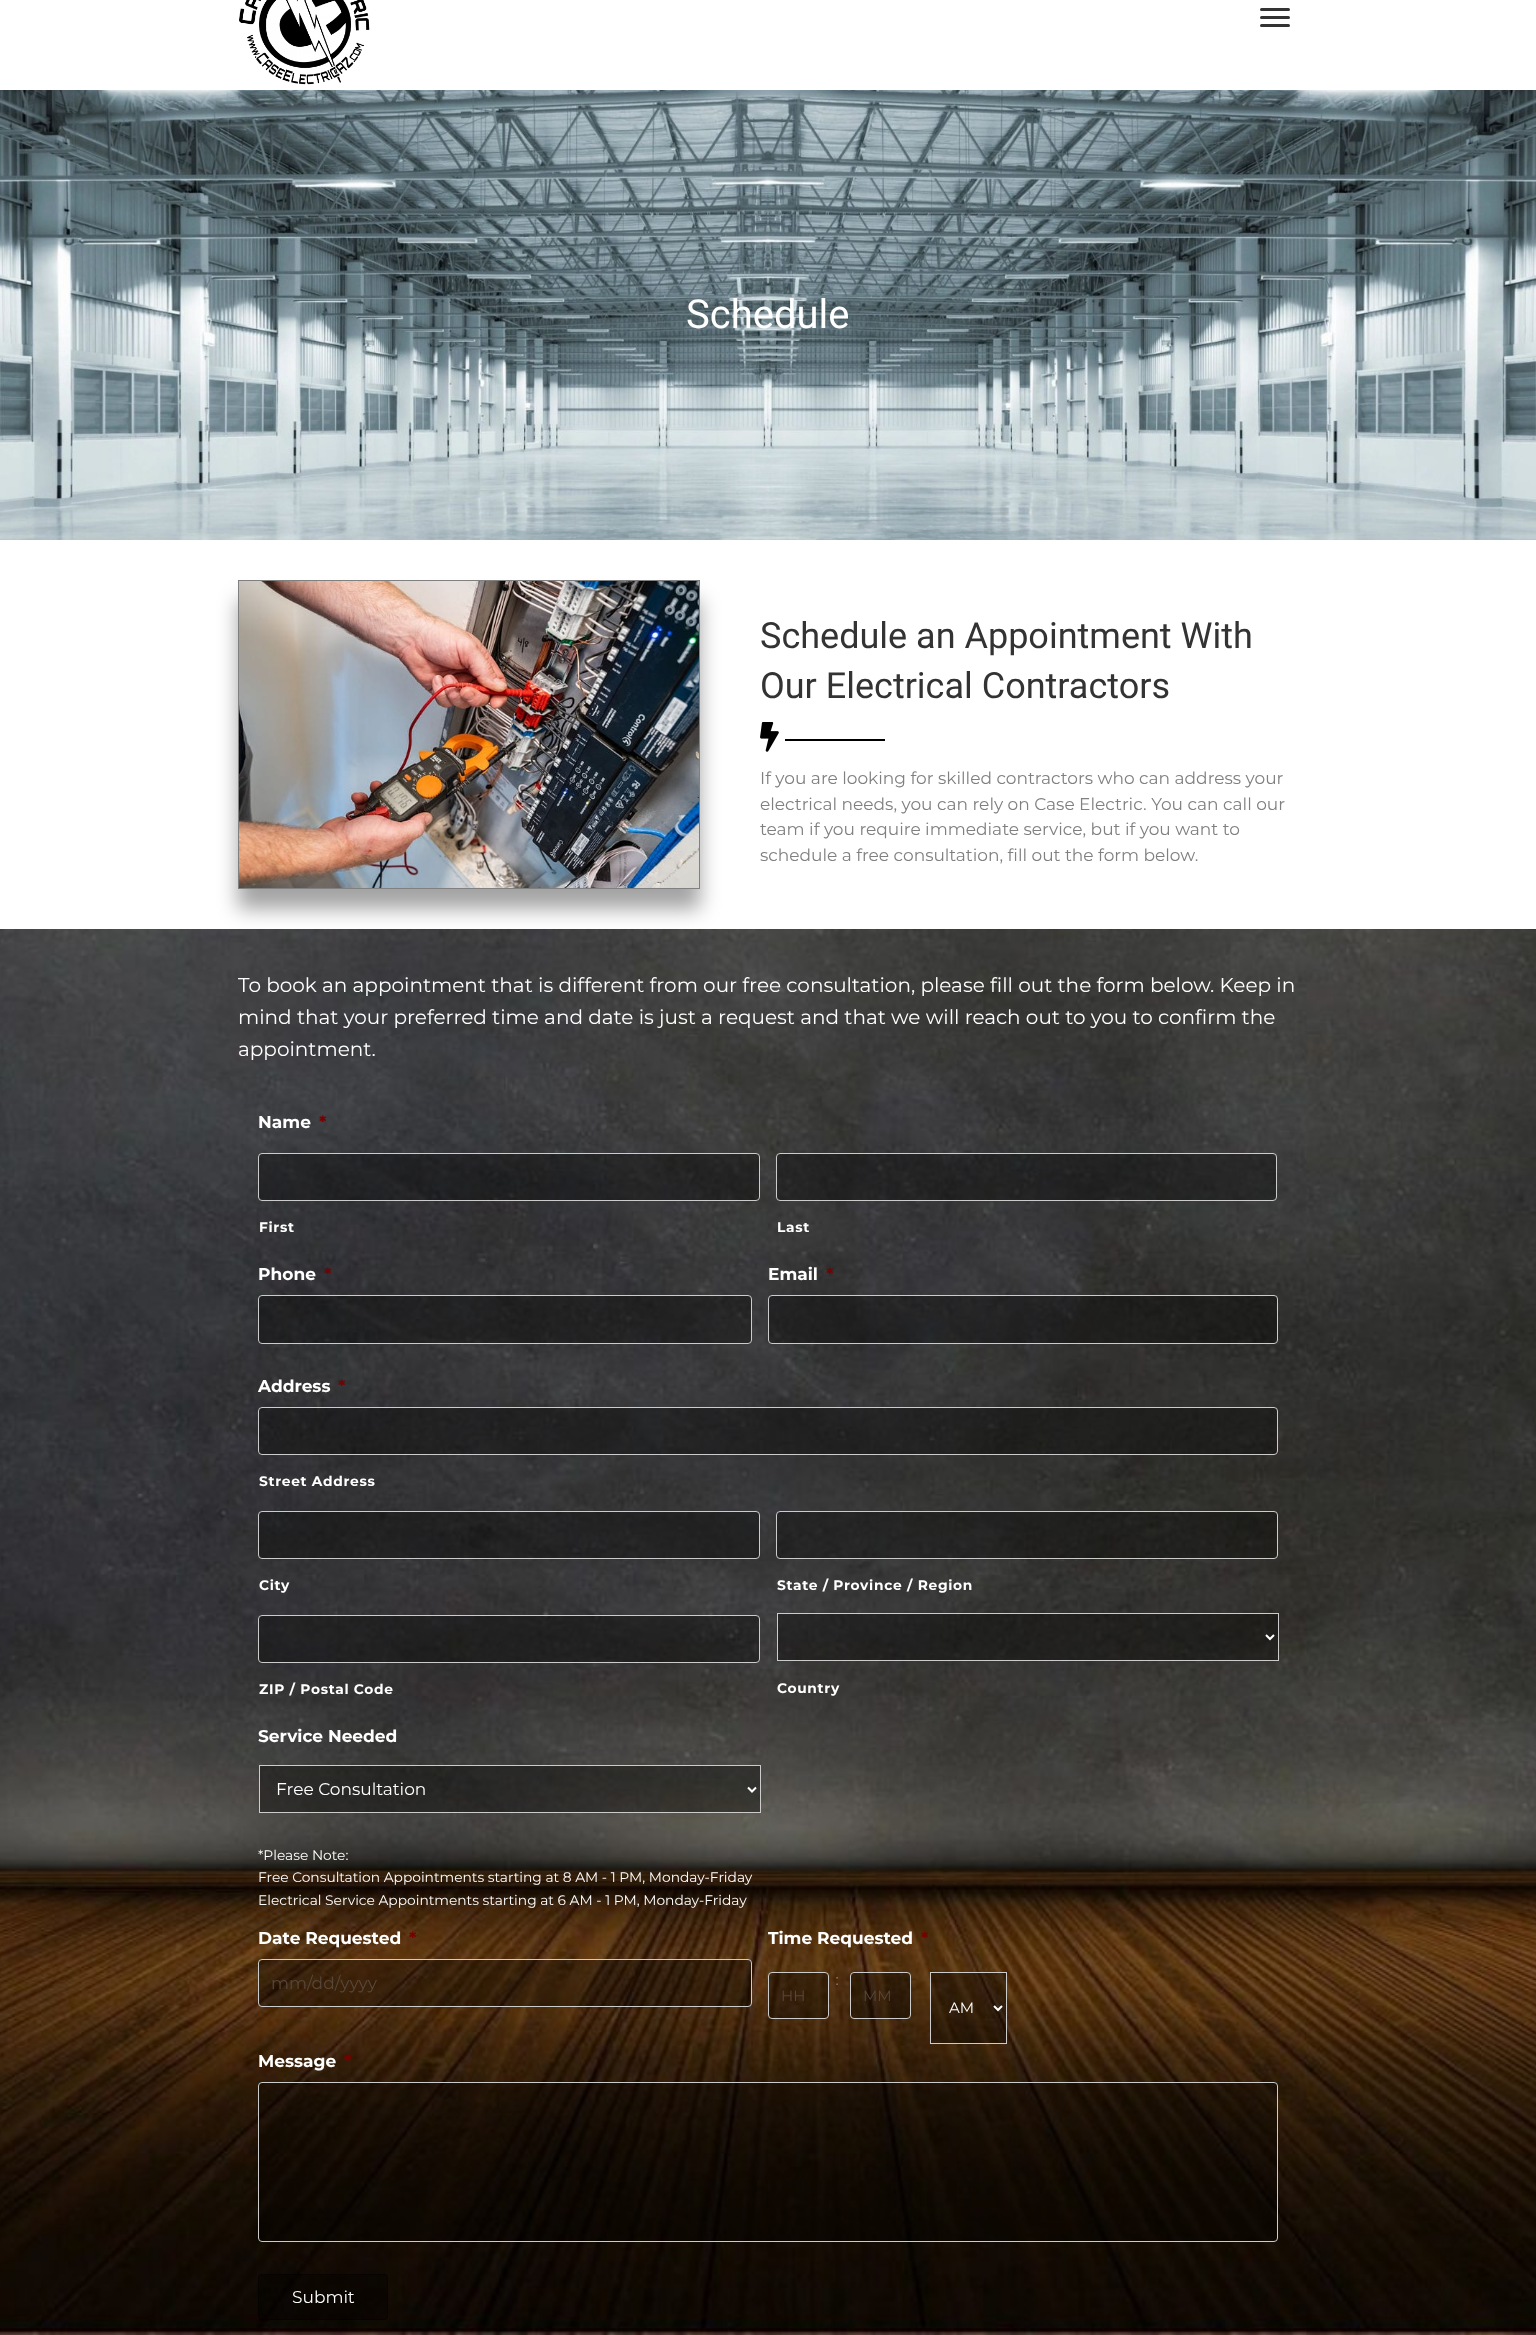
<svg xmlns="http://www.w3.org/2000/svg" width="1536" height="2335">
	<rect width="100%" height="100%" fill="#FFFFFF" />
	<image x="239" y="0" width="131" height="85" href="assets/img1.png" />
	<rect x="1260" y="16" width="30" height="3" rx="1.5" fill="#333333" />
	<rect x="1260" y="8" width="30" height="3" rx="1.5" fill="#333333" />
	<rect x="1260" y="24" width="30" height="3" rx="1.5" fill="#333333" />
	<image x="0" y="90" width="1536" height="450" href="assets/img2.png" />
	<text x="686" y="328" font-family="Roboto" font-size="40" fill="#FFFFFF">Schedule</text>
	<rect x="238" y="600" width="462" height="309" fill="#000000" fill-opacity="0.36" filter="blur(10px)" />
	<rect x="238.5" y="580.5" width="461" height="308" fill="none" stroke="#808080" />
	<image x="239" y="581" width="460" height="307" href="assets/img3.png" />
	<g font-family="Roboto" font-size="36" fill="#333333">
		<text x="760" y="648">Schedule an Appointment With</text>
		<text x="760" y="698">Our Electrical Contractors</text>
	</g>
	<image x="760" y="722" width="19" height="30" href="assets/img4.png" />
	<rect x="785" y="739" width="100" height="2" fill="#000000" />
	<g font-family="Montserrat" font-size="17" fill="#808080">
		<text x="760" y="784">If you are looking for skilled contractors who can address your</text>
		<text x="760" y="810">electrical needs, you can rely on Case Electric. You can call our</text>
		<text x="760" y="835">team if you require immediate service, but if you want to</text>
		<text x="760" y="861">schedule a free consultation, fill out the form below.</text>
	</g>
	<image x="0" y="929" width="1536" height="1406" href="assets/img5.png" />
	<g font-family="Montserrat" font-size="20" fill="#FFFFFF">
		<text x="238" y="992">To book an appointment that is different from our free consultation, please fill out the form below. Keep in</text>
		<text x="238" y="1024">mind that your preferred time and date is just a request and that we will reach out to you to confirm the</text>
		<text x="238" y="1056">appointment.</text>
	</g>
	<text x="258" y="1128" font-family="Montserrat" font-size="17" font-weight="700" fill="#FFFFFF">Name</text>
	<text x="319" y="1128" font-family="Montserrat" font-size="17" font-weight="700" fill="#790000">*</text>
	<rect x="258.5" y="1153.5" width="501" height="47" rx="3.5" fill="#000000" fill-opacity="0.36" stroke="#CCCCCC" />
	<text x="259" y="1232" font-family="Montserrat" font-size="13.8" font-weight="700" letter-spacing="0.7" fill="#FFFFFF">First</text>
	<rect x="776.5" y="1153.5" width="500" height="47" rx="3.5" fill="#000000" fill-opacity="0.36" stroke="#CCCCCC" />
	<text x="777" y="1232" font-family="Montserrat" font-size="13.8" font-weight="700" letter-spacing="0.7" fill="#FFFFFF">Last</text>
	<text x="258" y="1280" font-family="Montserrat" font-size="17" font-weight="700" fill="#FFFFFF">Phone</text>
	<text x="324" y="1280" font-family="Montserrat" font-size="17" font-weight="700" fill="#790000">*</text>
	<rect x="258.5" y="1295.5" width="493" height="48" rx="3.5" fill="#000000" fill-opacity="0.36" stroke="#CCCCCC" />
	<text x="768" y="1280" font-family="Montserrat" font-size="17" font-weight="700" fill="#FFFFFF">Email</text>
	<text x="826" y="1280" font-family="Montserrat" font-size="17" font-weight="700" fill="#790000">*</text>
	<rect x="768.5" y="1295.5" width="509" height="48" rx="3.5" fill="#000000" fill-opacity="0.36" stroke="#CCCCCC" />
	<text x="258" y="1392" font-family="Montserrat" font-size="17" font-weight="700" fill="#FFFFFF">Address</text>
	<text x="338" y="1392" font-family="Montserrat" font-size="17" font-weight="700" fill="#790000">*</text>
	<rect x="258.5" y="1407.5" width="1019" height="47" rx="3.5" fill="#000000" fill-opacity="0.36" stroke="#CCCCCC" />
	<text x="259" y="1486" font-family="Montserrat" font-size="13.8" font-weight="700" letter-spacing="0.7" fill="#FFFFFF">Street Address</text>
	<rect x="258.5" y="1511.5" width="501" height="47" rx="3.5" fill="#000000" fill-opacity="0.36" stroke="#CCCCCC" />
	<text x="259" y="1590" font-family="Montserrat" font-size="13.8" font-weight="700" letter-spacing="0.7" fill="#FFFFFF">City</text>
	<rect x="776.5" y="1511.5" width="501" height="47" rx="3.5" fill="#000000" fill-opacity="0.36" stroke="#CCCCCC" />
	<text x="777" y="1590" font-family="Montserrat" font-size="13.8" font-weight="700" letter-spacing="0.7" fill="#FFFFFF">State / Province / Region</text>
	<rect x="258.5" y="1615.5" width="501" height="47" rx="3.5" fill="#000000" fill-opacity="0.36" stroke="#CCCCCC" />
	<text x="259" y="1694" font-family="Montserrat" font-size="13.8" font-weight="700" letter-spacing="0.7" fill="#FFFFFF">ZIP / Postal Code</text>
	<rect x="777.5" y="1613.5" width="501" height="47" fill="#000000" fill-opacity="0.36" stroke="#CCCCCC" />
	<path d="M1266 1635L1270 1639L1274 1635" fill="none" stroke="#FFFFFF" stroke-width="2" />
	<text x="777" y="1693" font-family="Montserrat" font-size="13.8" font-weight="700" letter-spacing="0.7" fill="#FFFFFF">Country</text>
	<text x="258" y="1742" font-family="Montserrat" font-size="17" font-weight="700" fill="#FFFFFF">Service Needed</text>
	<rect x="259.5" y="1765.5" width="501" height="47" fill="#000000" fill-opacity="0.36" stroke="#CCCCCC" />
	<path d="M748 1787.5L752 1791.5L756 1787.5" fill="none" stroke="#FFFFFF" stroke-width="2" />
	<text x="276" y="1795" font-family="Montserrat" font-size="17" fill="#FFFFFF">Free Consultation</text>
	<g font-family="Montserrat" font-size="13.8" fill="#FFFFFF">
		<text x="258" y="1860">*Please Note:</text>
		<text x="258" y="1882">Free Consultation Appointments starting at 8 AM - 1 PM, Monday-Friday</text>
		<text x="258" y="1905">Electrical Service Appointments starting at 6 AM - 1 PM, Monday-Friday</text>
	</g>
	<text x="258" y="1944" font-family="Montserrat" font-size="17" font-weight="700" fill="#FFFFFF">Date Requested</text>
	<text x="409" y="1944" font-family="Montserrat" font-size="17" font-weight="700" fill="#790000">*</text>
	<rect x="258.5" y="1959.5" width="493" height="47" rx="3.5" fill="#000000" fill-opacity="0.36" stroke="#CCCCCC" />
	<text x="271" y="1989" font-family="Montserrat" font-size="17" fill="#56473A">mm/dd/yyyy</text>
	<text x="768" y="1944" font-family="Montserrat" font-size="17" font-weight="700" fill="#FFFFFF">Time Requested</text>
	<text x="921" y="1944" font-family="Montserrat" font-size="17" font-weight="700" fill="#790000">*</text>
	<text x="835" y="1985" font-family="Liberation Sans" font-size="15" fill="#808080">:</text>
	<rect x="768.5" y="1972.5" width="60" height="46" rx="3.5" fill="#000000" fill-opacity="0.36" stroke="#CCCCCC" />
	<text x="781" y="2001" font-family="Montserrat" font-size="15" fill="#56473A">HH</text>
	<rect x="850.5" y="1972.5" width="60" height="46" rx="3.5" fill="#000000" fill-opacity="0.36" stroke="#CCCCCC" />
	<text x="863" y="2001" font-family="Montserrat" font-size="15" fill="#56473A">MM</text>
	<rect x="930.5" y="1972.5" width="76" height="71" fill="#000000" fill-opacity="0.36" stroke="#CCCCCC" />
	<path d="M994 2006L998 2010L1002 2006" fill="none" stroke="#FFFFFF" stroke-width="2" />
	<text x="949" y="2013" font-family="Montserrat" font-size="15" fill="#FFFFFF">AM</text>
	<text x="258" y="2067" font-family="Montserrat" font-size="17" font-weight="700" fill="#FFFFFF">Message</text>
	<text x="344" y="2067" font-family="Montserrat" font-size="17" font-weight="700" fill="#790000">*</text>
	<rect x="258.5" y="2082.5" width="1019" height="159" rx="3.5" fill="#000000" fill-opacity="0.36" stroke="#CCCCCC" />
	<rect x="258" y="2274" width="130" height="46" rx="4" fill="#000000" fill-opacity="0.36" />
	<rect x="258.5" y="2274.5" width="129" height="45" rx="3.5" fill="none" stroke="#000000" stroke-opacity="0.36" />
	<text x="292" y="2303" font-family="Montserrat" font-size="17" fill="#FFFFFF">Submit</text>
</svg>
